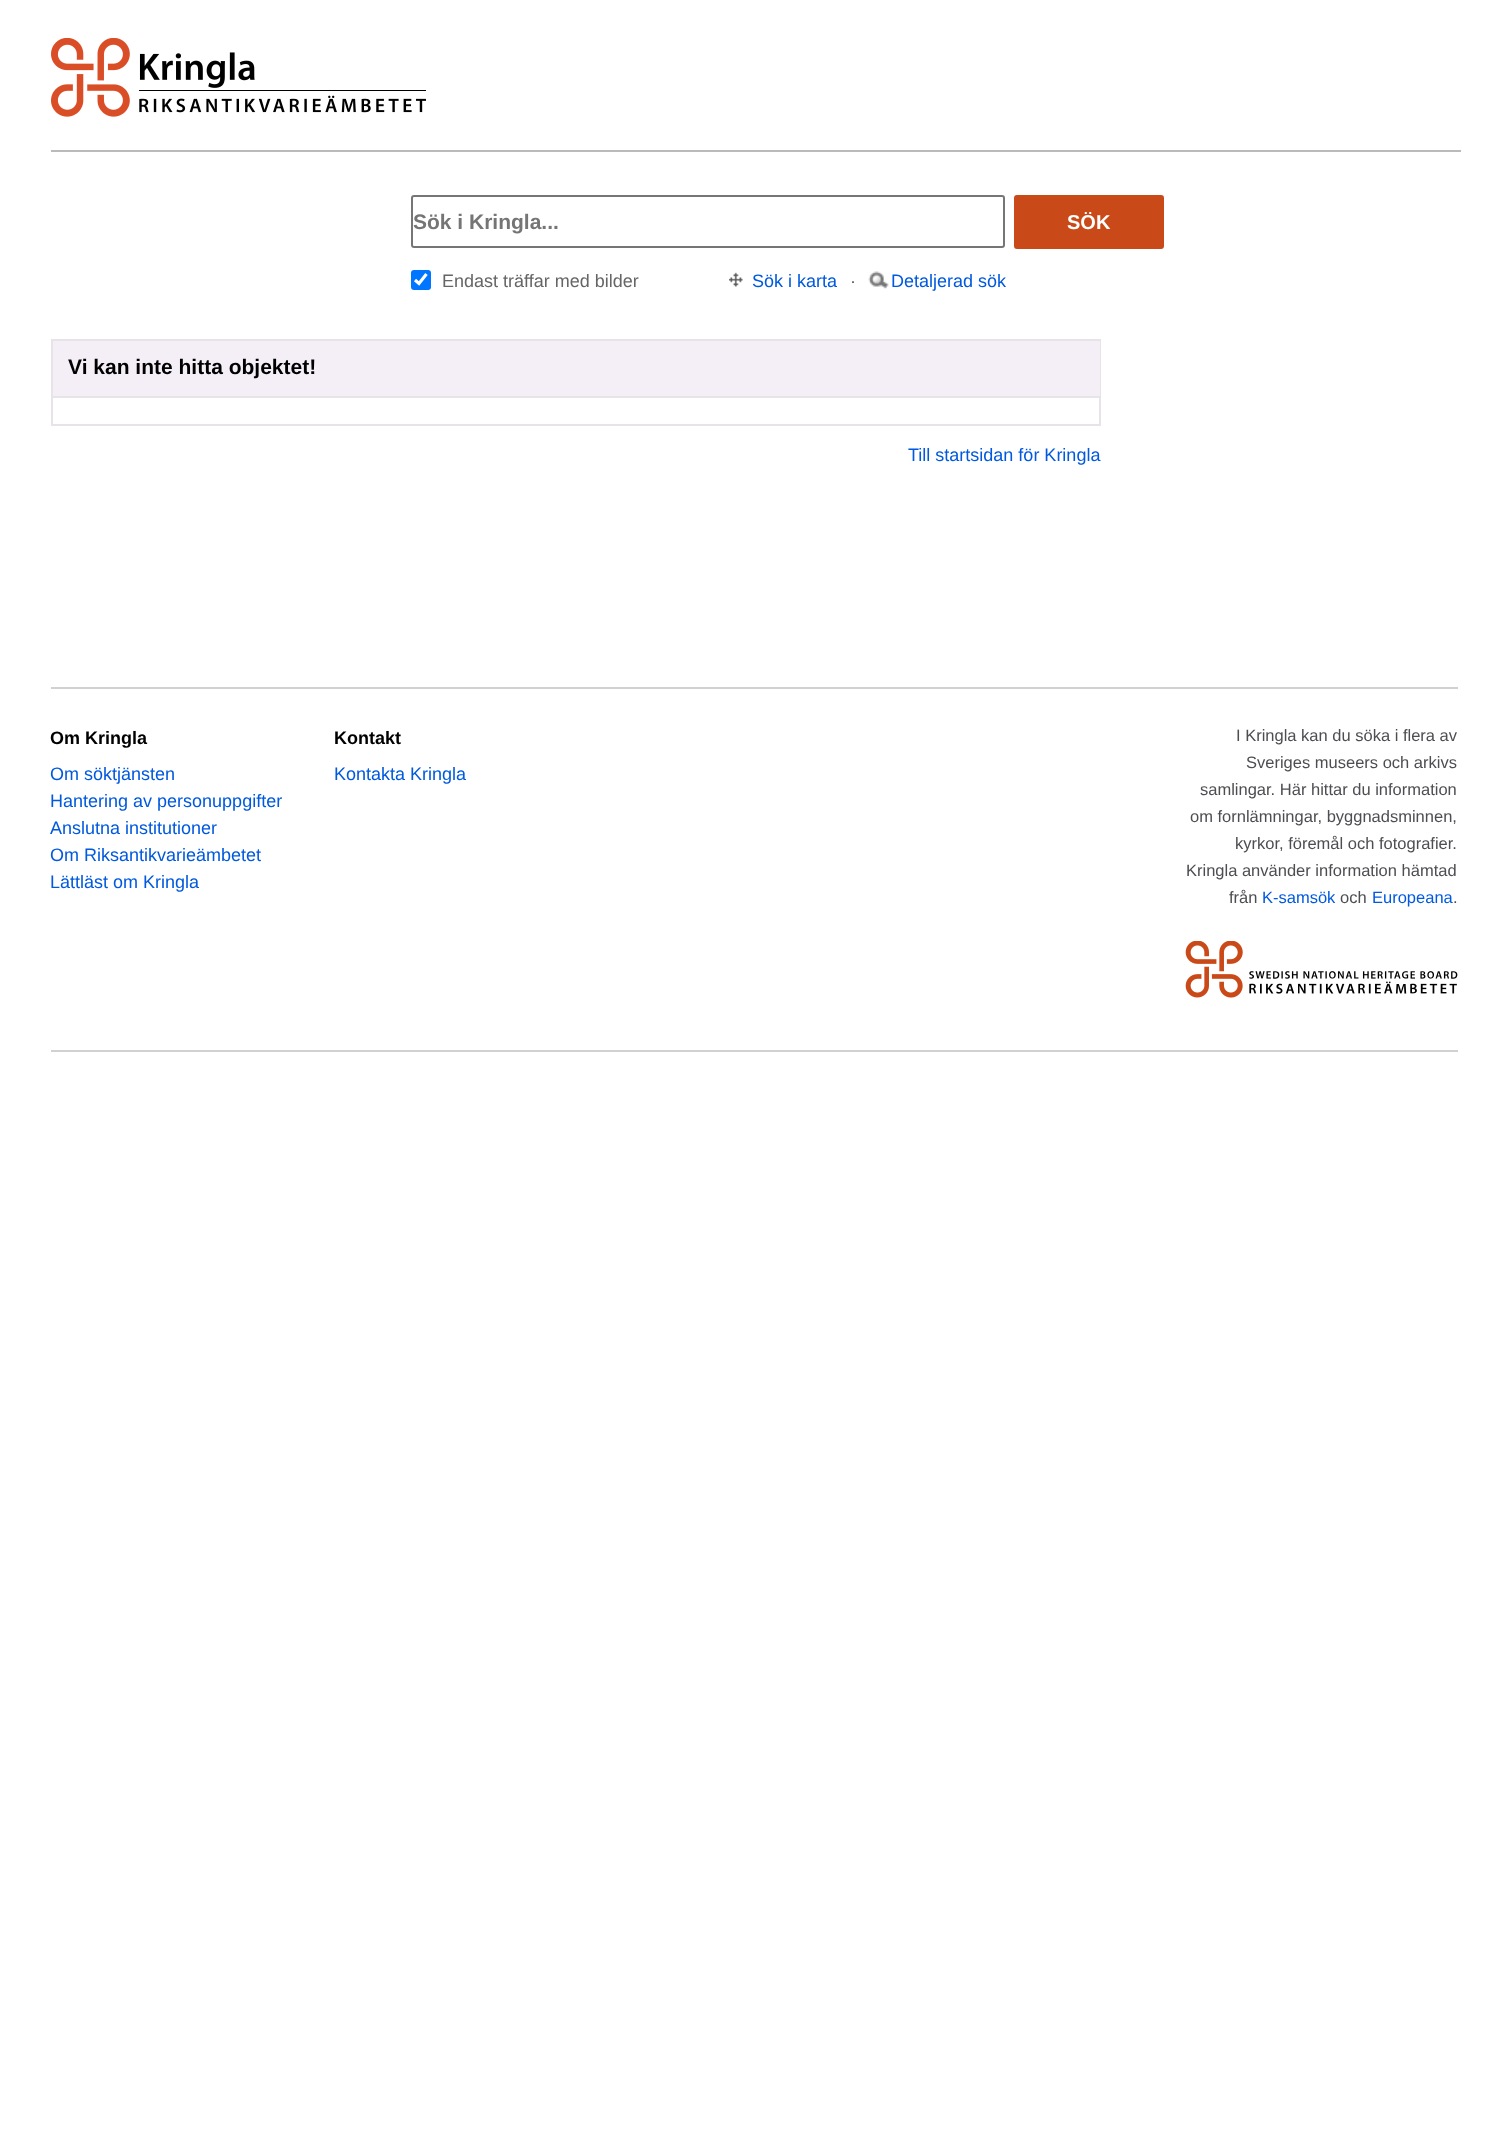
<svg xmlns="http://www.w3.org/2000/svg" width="1510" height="2145">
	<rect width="100%" height="100%" fill="#FFFFFF" />
	<rect x="51" y="150" width="1410" height="2" fill="#BABABA" />
	<image x="51" y="38" width="375" height="79" href="assets/img1.png" />
	<rect x="412" y="196" width="592" height="51" rx="2" fill="none" stroke="#767676" stroke-width="2" />
	<text x="413" y="229" font-family="Liberation Sans" font-size="21" font-weight="700" fill="#757575">Sök i Kringla...</text>
	<rect x="1014" y="195" width="150" height="54" rx="3" fill="#C94A18" />
	<text x="1067" y="229" font-family="Liberation Sans" font-size="20" font-weight="700" fill="#FFFFFF">SÖK</text>
	<rect x="411" y="270" width="20" height="20" rx="3" fill="#0075FF" />
	<path d="M415 280L419 283.5L426.5 274" fill="none" stroke="#FFFFFF" stroke-width="3.1" />
	<text x="442" y="287" font-family="Liberation Sans" font-size="18" fill="#666666">Endast träffar med bilder</text>
	<image x="729" y="272" width="14" height="15" href="assets/img2.png" />
	<text x="752" y="287" font-family="Liberation Sans" font-size="18" fill="#0059DF">Sök i karta</text>
	<text x="850" y="287" font-family="Liberation Sans" font-size="18" fill="#585858">·</text>
	<image x="868" y="271" width="21" height="18" href="assets/img3.png" />
	<text x="891" y="287" font-family="Liberation Sans" font-size="18" fill="#0059DF">Detaljerad sök</text>
	<rect x="52" y="340" width="1048" height="85" fill="none" stroke="#E7E3E8" stroke-width="2" />
	<rect x="53" y="341" width="1047" height="55" fill="#F4EFF7" />
	<rect x="53" y="396" width="1047" height="2" fill="#E7E3E8" />
	<text x="68" y="374" font-family="Liberation Sans" font-size="21" font-weight="700" fill="#000000">Vi kan inte hitta objektet!</text>
	<text x="908" y="461" font-family="Liberation Sans" font-size="18" fill="#0059DF">Till startsidan för Kringla</text>
	<rect x="51" y="687" width="1407" height="2" fill="#D2D1D1" />
	<rect x="51" y="1050" width="1407" height="2" fill="#D2D1D1" />
	<text x="50" y="744" font-family="Liberation Sans" font-size="18" font-weight="700" fill="#000000">Om Kringla</text>
	<g font-family="Liberation Sans" font-size="18" fill="#0059DF">
		<text x="50" y="780">Om söktjänsten</text>
		<text x="50" y="807">Hantering av personuppgifter</text>
		<text x="50" y="834">Anslutna institutioner</text>
		<text x="50" y="861">Om Riksantikvarieämbetet</text>
		<text x="50" y="888">Lättläst om Kringla</text>
	</g>
	<text x="334" y="744" font-family="Liberation Sans" font-size="18" font-weight="700" fill="#000000">Kontakt</text>
	<text x="334" y="780" font-family="Liberation Sans" font-size="18" fill="#0059DF">Kontakta Kringla</text>
	<g font-family="Liberation Sans" font-size="16.5" fill="#4D4D52">
		<text x="1236" y="741">I Kringla kan du söka i flera av</text>
		<text x="1246" y="768">Sveriges museers och arkivs</text>
		<text x="1200" y="795">samlingar. Här hittar du information</text>
		<text x="1190" y="822">om fornlämningar, byggnadsminnen,</text>
		<text x="1235" y="849">kyrkor, föremål och fotografier.</text>
		<text x="1186" y="876">Kringla använder information hämtad</text>
		<text x="1229" y="903">från</text>
	</g>
	<text x="1262" y="903" font-family="Liberation Sans" font-size="16.5" fill="#0059DF">K-samsök</text>
	<text x="1340" y="903" font-family="Liberation Sans" font-size="16.5" fill="#4D4D52">och</text>
	<text x="1372" y="903" font-family="Liberation Sans" font-size="16.5" fill="#0059DF">Europeana</text>
	<text x="1453" y="903" font-family="Liberation Sans" font-size="16.5" fill="#4D4D52">.</text>
	<image x="1185" y="941" width="273" height="57" href="assets/img4.png" />
</svg>
